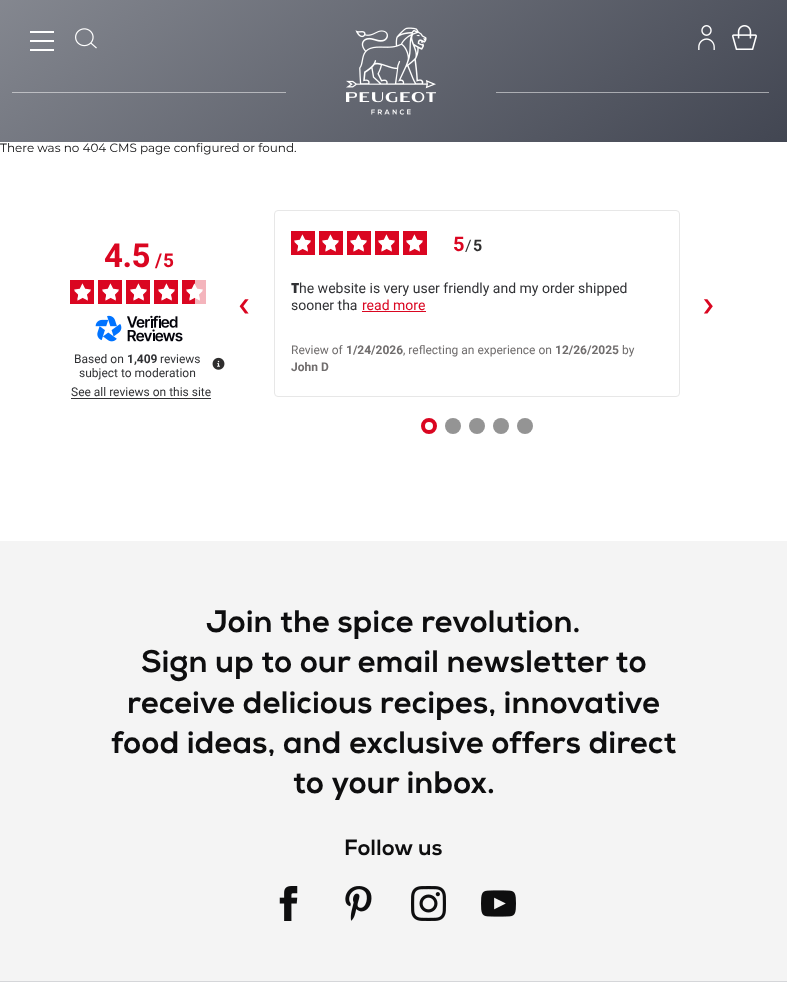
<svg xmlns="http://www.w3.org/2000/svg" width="787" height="988">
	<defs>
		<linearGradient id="g1" gradientUnits="userSpaceOnUse" x1="764" y1="158" x2="23" y2="-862"><stop offset="0" stop-color="#424652" /><stop offset="0.5" stop-color="#8A8D95" /><stop offset="1" stop-color="#D5D6D9" /></linearGradient>
		<linearGradient id="g2" gradientUnits="userSpaceOnUse" x1="764" y1="158" x2="23" y2="-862"><stop offset="0" stop-color="#A1A3A9" /><stop offset="0.5" stop-color="#C5C6CA" /><stop offset="1" stop-color="#EAEBEC" /></linearGradient>
	</defs>
	<rect width="100%" height="100%" fill="#FFFFFF" />
	<rect x="0" y="0" width="787" height="142" fill="url(#g1)" />
	<rect x="496" y="92" width="273" height="1" fill="url(#g2)" />
	<rect x="12" y="92" width="274" height="1" fill="url(#g2)" />
	<rect x="30" y="31" width="24" height="2" fill="#FFFFFF" />
	<rect x="30" y="40" width="24" height="2" fill="#FFFFFF" />
	<rect x="30" y="49" width="24" height="2" fill="#FFFFFF" />
	<image x="75" y="28" width="22" height="21" href="assets/img1.png" />
	<image x="346" y="27" width="90" height="88" href="assets/img2.png" />
	<image x="698" y="25" width="17" height="25" href="assets/img3.png" />
	<image x="732" y="25" width="25" height="25" href="assets/img4.png" />
	<text x="0" y="152" font-family="Montserrat" font-size="12" font-weight="100" fill="#0E0E0F">There was no 404 CMS page configured or found.</text>
	<text x="104" y="267" font-family="Roboto" font-size="33" font-weight="700" letter-spacing="-0.5" fill="#DA0621">4.5</text>
	<g font-family="Roboto" font-size="19" font-weight="700" fill="#DA0621">
		<text x="155" y="267">/</text>
		<text x="163" y="267">5</text>
	</g>
	<rect x="70" y="280" width="24" height="24" fill="#DA0621" />
	<image x="74" y="284" width="17" height="17" href="assets/img6.png" />
	<image x="74" y="283" width="17" height="17" href="assets/img5.png" />
	<rect x="98" y="280" width="24" height="24" fill="#DA0621" />
	<image x="102" y="284" width="17" height="17" href="assets/img6.png" />
	<image x="102" y="283" width="17" height="17" href="assets/img5.png" />
	<rect x="126" y="280" width="24" height="24" fill="#DA0621" />
	<image x="130" y="284" width="17" height="17" href="assets/img6.png" />
	<image x="130" y="283" width="17" height="17" href="assets/img5.png" />
	<rect x="154" y="280" width="24" height="24" fill="#DA0621" />
	<image x="158" y="284" width="17" height="17" href="assets/img6.png" />
	<image x="158" y="283" width="17" height="17" href="assets/img5.png" />
	<rect x="182" y="280" width="13" height="24" fill="#DA0621" />
	<rect x="195" y="280" width="11" height="24" fill="#F4B4BC" />
	<image x="186" y="284" width="17" height="17" href="assets/img8.png" />
	<image x="186" y="283" width="17" height="17" href="assets/img7.png" />
	<image x="95" y="315" width="88" height="27" href="assets/img9.png" />
	<text x="74" y="363" font-family="Roboto" font-size="12" fill="#313235">Based on</text>
	<text x="127" y="363" font-family="Roboto" font-size="12" font-weight="700" fill="#313235">1,409</text>
	<g font-family="Roboto" font-size="12" fill="#313235">
		<text x="160" y="363">reviews</text>
		<text x="79" y="377">subject to moderation</text>
	</g>
	<image x="212" y="357" width="13" height="13" href="assets/img10.png" />
	<text x="71" y="396" font-family="Roboto" font-size="12" fill="#313235">See all reviews on this site</text>
	<rect x="71" y="398" width="140" height="1" fill="#313235" />
	<text x="238" y="316" font-family="Montserrat" font-size="35" font-weight="700" fill="#DA0621">‹</text>
	<rect x="274.5" y="210.5" width="405" height="186" rx="3.5" fill="none" stroke="#E7E7E7" />
	<rect x="291" y="231" width="24" height="24" fill="#DA0621" />
	<image x="294" y="235" width="17" height="17" href="assets/img6.png" />
	<image x="294" y="234" width="17" height="17" href="assets/img5.png" />
	<rect x="319" y="231" width="24" height="24" fill="#DA0621" />
	<image x="322" y="235" width="17" height="17" href="assets/img6.png" />
	<image x="322" y="234" width="17" height="17" href="assets/img5.png" />
	<rect x="347" y="231" width="24" height="24" fill="#DA0621" />
	<image x="350" y="235" width="17" height="17" href="assets/img6.png" />
	<image x="350" y="234" width="17" height="17" href="assets/img5.png" />
	<rect x="375" y="231" width="24" height="24" fill="#DA0621" />
	<image x="378" y="235" width="17" height="17" href="assets/img6.png" />
	<image x="378" y="234" width="17" height="17" href="assets/img5.png" />
	<rect x="403" y="231" width="24" height="24" fill="#DA0621" />
	<image x="406" y="235" width="17" height="17" href="assets/img6.png" />
	<image x="406" y="234" width="17" height="17" href="assets/img5.png" />
	<text x="453" y="251" font-family="Roboto" font-size="20" font-weight="700" letter-spacing="1" fill="#DA0621">5</text>
	<text x="465" y="251" font-family="Roboto" font-size="16" letter-spacing="1" fill="#2F2E2E">/</text>
	<text x="473" y="251" font-family="Roboto" font-size="16" font-weight="700" letter-spacing="1" fill="#2F2E2E">5</text>
	<text x="291" y="293" font-family="Noto Sans" font-size="14" font-weight="900" fill="#313235">T</text>
	<g font-family="Roboto" font-size="14" fill="#313235">
		<text x="299" y="293">he website is very user friendly and my order shipped</text>
		<text x="291" y="310">sooner tha</text>
	</g>
	<text x="362" y="310" font-family="Roboto" font-size="14" fill="#DA0621">read more</text>
	<rect x="362" y="311" width="64" height="1" fill="#DA0621" />
	<text x="291" y="354" font-family="Roboto" font-size="12" fill="#706D6D">Review of</text>
	<text x="346" y="354" font-family="Roboto" font-size="12" font-weight="700" fill="#706D6D">1/24/2026</text>
	<text x="403" y="354" font-family="Roboto" font-size="12" fill="#706D6D">, reflecting an experience on</text>
	<text x="555" y="354" font-family="Roboto" font-size="12" font-weight="700" fill="#706D6D">12/26/2025</text>
	<text x="622" y="354" font-family="Roboto" font-size="12" fill="#706D6D">by</text>
	<text x="291" y="371" font-family="Roboto" font-size="12" font-weight="700" fill="#706D6D">John D</text>
	<text x="703" y="316" font-family="Montserrat" font-size="35" font-weight="700" fill="#DA0621">›</text>
	<circle cx="429" cy="426" r="6" fill="none" stroke="#DA0621" stroke-width="4" />
	<circle cx="453" cy="426" r="8" fill="#949494" />
	<circle cx="477" cy="426" r="8" fill="#949494" />
	<circle cx="501" cy="426" r="8" fill="#949494" />
	<circle cx="525" cy="426" r="8" fill="#949494" />
	<rect x="0" y="541" width="787" height="440" fill="#F4F4F4" />
	<g font-family="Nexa" font-size="31" font-weight="700" fill="#0E0E0F">
		<text x="206" y="632">Join the spice revolution.</text>
		<text x="141" y="672">Sign up to our email newsletter to</text>
		<text x="127" y="713">receive delicious recipes, innovative</text>
		<text x="111" y="753">food ideas, and exclusive offers direct</text>
		<text x="293" y="793">to your inbox.</text>
	</g>
	<text x="344" y="855" font-family="Nexa" font-size="22" font-weight="700" fill="#0E0E0F">Follow us</text>
	<image x="279" y="886" width="19" height="35" href="assets/img11.png" />
	<image x="345" y="886" width="27" height="35" href="assets/img12.png" />
	<image x="411" y="886" width="35" height="35" href="assets/img13.png" />
	<image x="481" y="890" width="35" height="27" href="assets/img14.png" />
	<rect x="0" y="981" width="787" height="1" fill="#D5D6D9" />
</svg>
